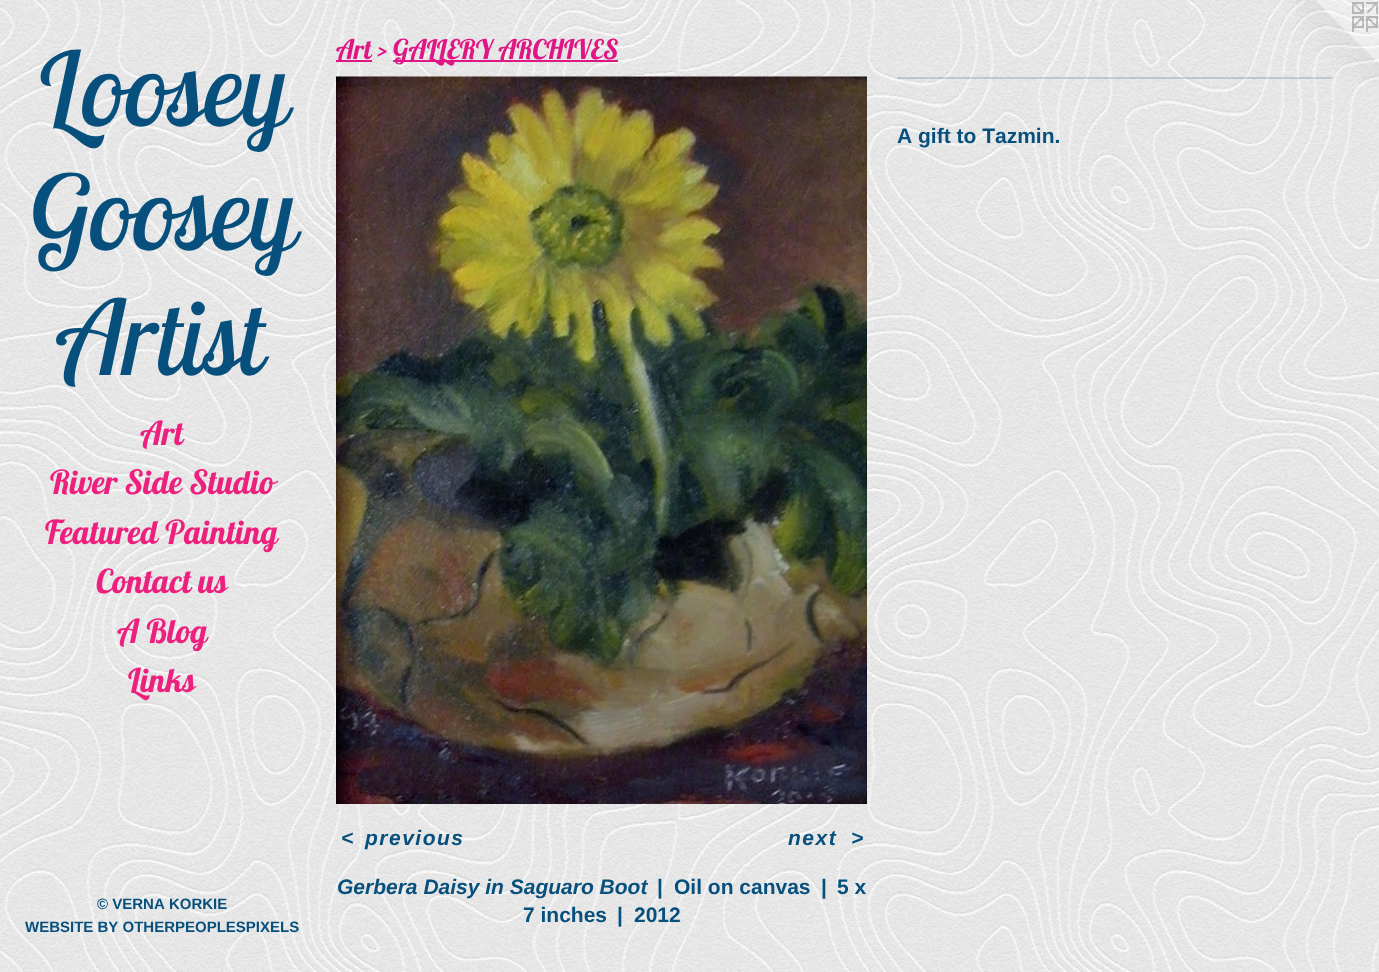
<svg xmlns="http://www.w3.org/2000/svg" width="1379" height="972">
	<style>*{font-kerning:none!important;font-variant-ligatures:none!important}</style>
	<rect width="100%" height="100%" fill="#FFFFFF" />
	<image x="0" y="0" width="1379" height="972" href="assets/img1.png" />
	<g font-family="Lobster Two" font-size="103.5" font-style="italic" fill="#07507D">
		<text x="35" y="126">Loosey</text>
		<text x="28" y="250">Goosey</text>
		<text x="60" y="375">Artist</text>
	</g>
	<g font-family="Lobster" font-size="33" fill="#EE207E">
		<text x="140" y="445">Art</text>
		<text x="50" y="494">River Side Studio</text>
		<text x="45" y="544">Featured Painting</text>
		<text x="96" y="593">Contact us</text>
		<text x="117" y="643">A Blog</text>
		<text x="128" y="692">Links</text>
	</g>
	<g font-family="Liberation Sans" font-size="15" font-weight="700" fill="#07507D">
		<text x="97" y="909">© VERNA KORKIE</text>
		<text x="25" y="932">WEBSITE BY OTHERPEOPLESPIXELS</text>
	</g>
	<rect x="336" y="60" width="36" height="2" fill="#DF1683" />
	<text x="336" y="59" font-family="Lobster" font-size="27" fill="#DF1683">Art &gt;</text>
	<rect x="393" y="60" width="225" height="2" fill="#DF1683" />
	<text x="393" y="59" font-family="Lobster" font-size="27" fill="#DF1683">GALLERY ARCHIVES</text>
	<rect x="897" y="77" width="435" height="2" fill="#07507D" fill-opacity="0.2" />
	<text x="897" y="143" font-family="Liberation Sans" font-size="21" font-weight="700" fill="#07507D">A gift to Tazmin.</text>
	<image x="336" y="76" width="531" height="728" href="assets/img2.png" />
	<g font-family="Liberation Sans" font-size="21" font-weight="700" font-style="italic" letter-spacing="1.5" fill="#07507D">
		<text x="341" y="845">&lt;</text>
		<text x="365" y="845">previous</text>
		<text x="788" y="845">next</text>
		<text x="851" y="845">&gt;</text>
	</g>
	<text x="337" y="894" font-family="Liberation Sans" font-size="21" font-weight="700" font-style="italic" fill="#07507D">Gerbera Daisy in Saguaro Boot</text>
	<g font-family="Liberation Sans" font-size="21" font-weight="700" fill="#07507D">
		<text x="657" y="894">|</text>
		<text x="674" y="894">Oil on canvas</text>
		<text x="821" y="894">|</text>
		<text x="837" y="894">5 x</text>
		<text x="523" y="922">7 inches</text>
		<text x="617" y="922">|</text>
		<text x="634" y="922">2012</text>
	</g>
	<image x="1296" y="0" width="83" height="83" href="assets/img3.png" />
</svg>
